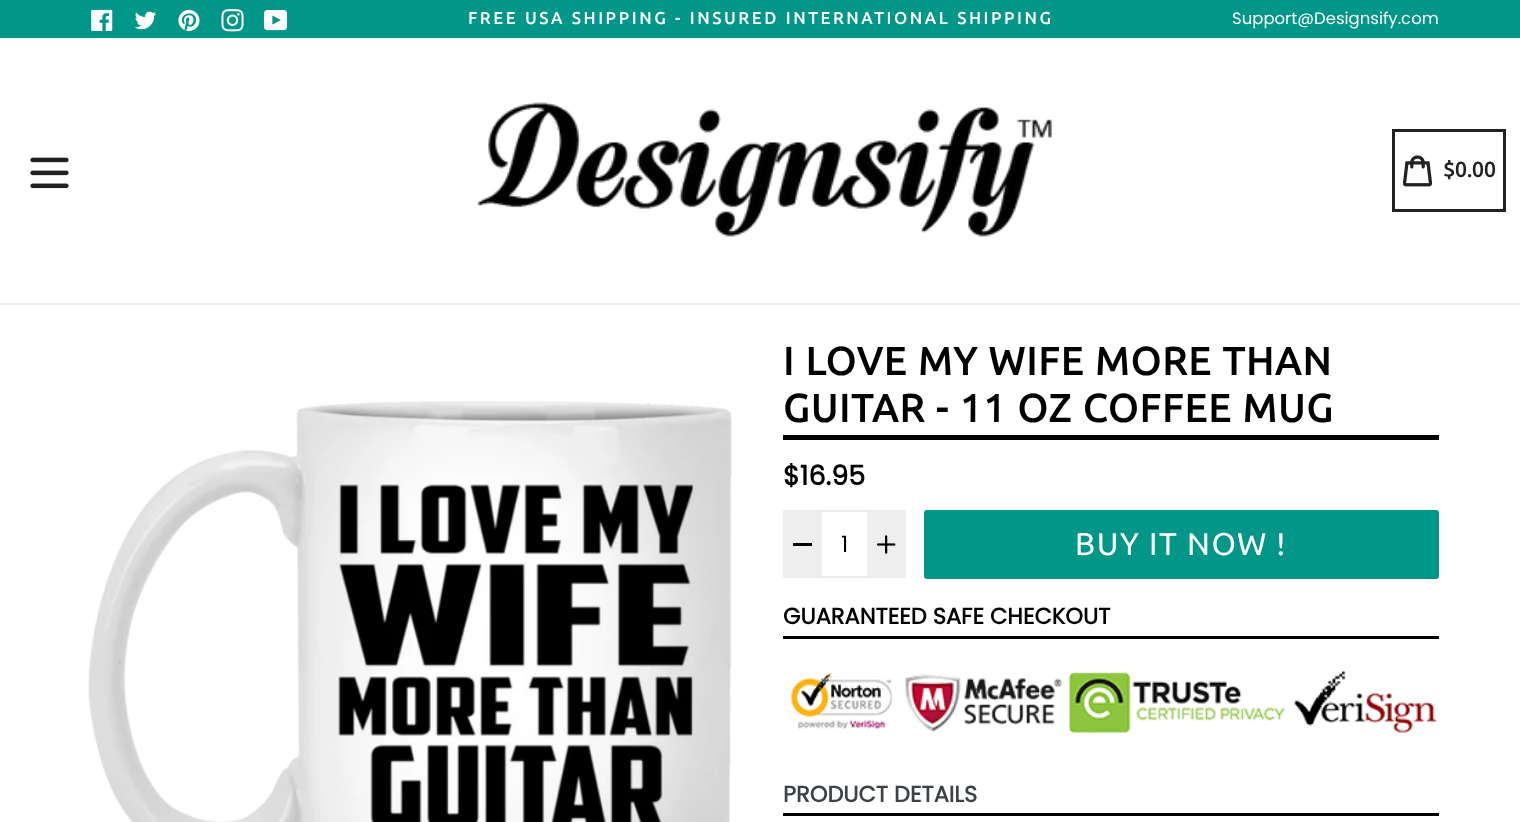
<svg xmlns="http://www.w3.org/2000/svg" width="1520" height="822">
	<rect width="100%" height="100%" fill="#FFFFFF" />
	<rect x="0" y="0" width="1520" height="38" fill="#009688" />
	<image x="91" y="9" width="22" height="22" href="assets/img1.png" />
	<image x="134" y="11" width="23" height="19" href="assets/img2.png" />
	<image x="178" y="9" width="22" height="22" href="assets/img3.png" />
	<image x="221" y="9" width="23" height="23" href="assets/img4.png" />
	<image x="263" y="10" width="25" height="21" href="assets/img5.png" />
	<text x="468" y="24" font-family="Ubuntu" font-size="16.5" font-weight="700" letter-spacing="3" fill="#FFFFFF">FREE USA SHIPPING - INSURED INTERNATIONAL SHIPPING</text>
	<text x="1232" y="24" font-family="Poppins" font-size="16.5" fill="#FFFFFF">Support@Designsify.com</text>
	<rect x="0" y="303" width="1520" height="2" fill="#EBEBEB" />
	<image x="30" y="157" width="39" height="32" href="assets/img6.png" />
	<image x="477" y="102" width="576" height="135" href="assets/img7.png" />
	<rect x="1393.5" y="130.5" width="111" height="80" fill="none" stroke="#212121" stroke-width="3" />
	<image x="1403" y="155" width="30" height="32" href="assets/img8.png" />
	<text x="1443" y="177" font-family="Ubuntu" font-size="21" font-weight="700" fill="#212121">$0.00</text>
	<image x="88" y="400" width="644" height="422" href="assets/img9.png" />
	<rect x="783" y="435" width="656" height="5" fill="#000000" />
	<g font-family="Ubuntu" font-size="39" font-weight="700" letter-spacing="1.5" fill="#000000">
		<text x="783" y="375">I LOVE MY WIFE MORE THAN</text>
		<text x="783" y="422">GUITAR - 11 OZ COFFEE MUG</text>
	</g>
	<text x="783" y="485" font-family="Poppins" font-size="27" font-weight="700" fill="#000000">$16.95</text>
	<rect x="783" y="510" width="39" height="68" fill="#EEEEEE" />
	<rect x="793" y="543" width="19" height="3" fill="#000000" />
	<rect x="822" y="510" width="45" height="2" fill="#EBEBEB" />
	<rect x="822" y="576" width="45" height="2" fill="#EBEBEB" />
	<text x="841" y="552" font-family="Poppins" font-size="22.5" fill="#000000">1</text>
	<rect x="867" y="510" width="39" height="68" fill="#EEEEEE" />
	<image x="877" y="535" width="19" height="19" href="assets/img10.png" />
	<rect x="924" y="510" width="515" height="69" rx="3" fill="#009688" />
	<text x="1075" y="555" font-family="Ubuntu" font-size="31.5" letter-spacing="1.5" fill="#FFFFFF">BUY IT NOW !</text>
	<rect x="783" y="636" width="656" height="3" fill="#000000" />
	<text x="783" y="624" font-family="Poppins" font-size="22.5" font-weight="700" fill="#000000">GUARANTEED SAFE CHECKOUT</text>
	<image x="791" y="670" width="647" height="63" href="assets/img11.png" />
	<rect x="783" y="813" width="656" height="3" fill="#000000" />
	<text x="783" y="802" font-family="Poppins" font-size="22.5" font-weight="700" fill="#3D4246">PRODUCT DETAILS</text>
</svg>
